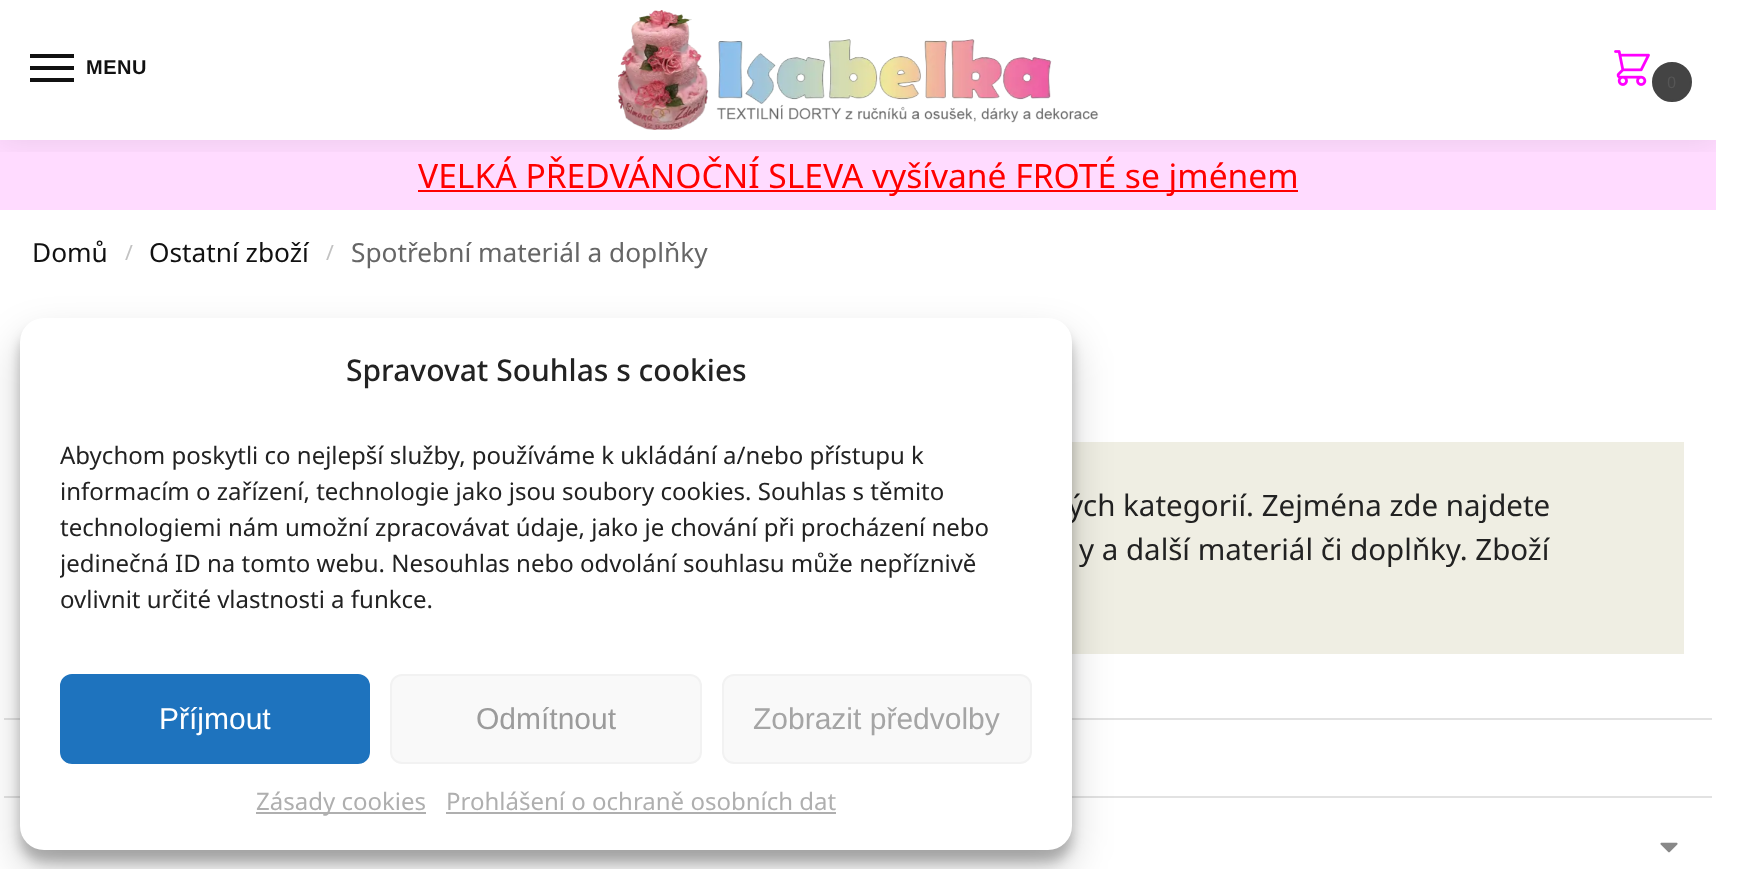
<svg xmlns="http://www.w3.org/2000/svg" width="1745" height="869">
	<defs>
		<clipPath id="clip1"><rect x="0" y="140" width="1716" height="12" /></clipPath>
		<clipPath id="clip2"><rect x="60" y="438" width="972" height="190" /></clipPath>
	</defs>
	<rect width="100%" height="100%" fill="#FFFFFF" />
	<rect x="0" y="140" width="1716" height="70" fill="#FFDBFF" />
	<g clip-path="url(#clip1)">
		<rect x="0" y="2" width="1716" height="140" fill="#000000" fill-opacity="0.08" filter="blur(15px)" />
	</g>
	<rect x="30" y="54" width="44" height="4" fill="#111111" />
	<rect x="30" y="66" width="44" height="4" fill="#111111" />
	<text x="86" y="74" font-family="Liberation Sans" font-size="20" font-weight="700" letter-spacing="0.5" fill="#111111">MENU</text>
	<rect x="30" y="78" width="44" height="4" fill="#111111" />
	<image x="618" y="10" width="481" height="120" href="assets/img1.png" />
	<image x="1614" y="50" width="36" height="36" href="assets/img2.png" />
	<circle cx="1672" cy="82" r="19" fill="#444444" stroke="#444444" stroke-width="2" />
	<text x="1667" y="88" font-family="Noto Sans" font-size="16" fill="#555555">0</text>
	<rect x="1716" y="0" width="17" height="152" fill="#FFFFFF" />
	<rect x="418" y="190" width="880" height="2" fill="#FF0000" />
	<text x="418" y="188" font-family="Noto Sans" font-size="33.6" fill="#FF0000">VELKÁ PŘEDVÁNOČNÍ SLEVA vyšívané FROTÉ se jménem</text>
	<text x="32" y="262" font-family="Noto Sans" font-size="26.25" fill="#111111">Domů</text>
	<text x="125" y="260" font-family="Noto Sans" font-size="21" fill="#C2C2C2">/</text>
	<text x="149" y="262" font-family="Noto Sans" font-size="26.25" fill="#111111">Ostatní zboží</text>
	<text x="326" y="260" font-family="Noto Sans" font-size="21" fill="#C2C2C2">/</text>
	<text x="351" y="262" font-family="Noto Sans" font-size="26.25" fill="#666666">Spotřební materiál a doplňky</text>
	<rect x="1072" y="442" width="612" height="212" fill="#EFEEE3" />
	<g font-family="Noto Sans" font-size="29.5" fill="#222222">
		<text x="1068" y="516">ých kategorií. Zejména zde najdete</text>
		<text x="1079" y="560">y a další materiál či doplňky. Zboží</text>
	</g>
	<rect x="4" y="718" width="1708" height="2" fill="#E2E2E2" />
	<rect x="4" y="796" width="1708" height="2" fill="#E2E2E2" />
	<image x="1660" y="842" width="18" height="11" href="assets/img3.png" />
	<rect x="20" y="330" width="1052" height="532" rx="24" fill="#000000" fill-opacity="0.23" filter="blur(6px)" />
	<rect x="20" y="338" width="1052" height="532" rx="24" fill="#000000" fill-opacity="0.19" filter="blur(20px)" />
	<rect x="20" y="318" width="1052" height="532" rx="24" fill="#FFFFFF" />
	<text x="346" y="381" font-family="Noto Sans" font-size="30" font-weight="500" fill="#222222">Spravovat Souhlas s cookies</text>
	<g font-family="Noto Sans" font-size="24" fill="#222222">
		<text x="60" y="464">Abychom poskytli co nejlepší služby, používáme k ukládání a/nebo přístupu k</text>
		<text x="60" y="500">informacím o zařízení, technologie jako jsou soubory cookies. Souhlas s těmito</text>
		<text x="60" y="536">technologiemi nám umožní zpracovávat údaje, jako je chování při procházení nebo</text>
	</g>
	<g clip-path="url(#clip2)">
		<text x="60" y="572" font-family="Noto Sans" font-size="24" fill="#222222">jedinečná ID na tomto webu. Nesouhlas nebo odvolání souhlasu může nepříznivě</text>
	</g>
	<text x="60" y="608" font-family="Noto Sans" font-size="24" fill="#222222">ovlivnit určité vlastnosti a funkce.</text>
	<rect x="61" y="675" width="308" height="88" rx="11" fill="#1E73BE" stroke="#1E73BE" stroke-width="2" />
	<text x="159" y="729" font-family="Liberation Sans" font-size="30" fill="#FFFFFF">Příjmout</text>
	<rect x="391" y="675" width="310" height="88" rx="11" fill="#F9F9F9" stroke="#F2F2F2" stroke-width="2" />
	<text x="476" y="729" font-family="Liberation Sans" font-size="30" fill="#9B9B9B">Odmítnout</text>
	<rect x="723" y="675" width="308" height="88" rx="11" fill="#F9F9F9" stroke="#F2F2F2" stroke-width="2" />
	<text x="753" y="729" font-family="Liberation Sans" font-size="30" fill="#A5A5A5">Zobrazit předvolby</text>
	<rect x="256" y="812" width="170" height="2" fill="#AFAFAF" />
	<g font-family="Noto Sans" font-size="24" fill="#AFAFAF">
		<text x="256" y="810">Zásady cookies</text>
		<text x="446" y="810">Prohlášení o ochraně osobních dat</text>
	</g>
	<rect x="446" y="812" width="390" height="2" fill="#AFAFAF" />
</svg>
